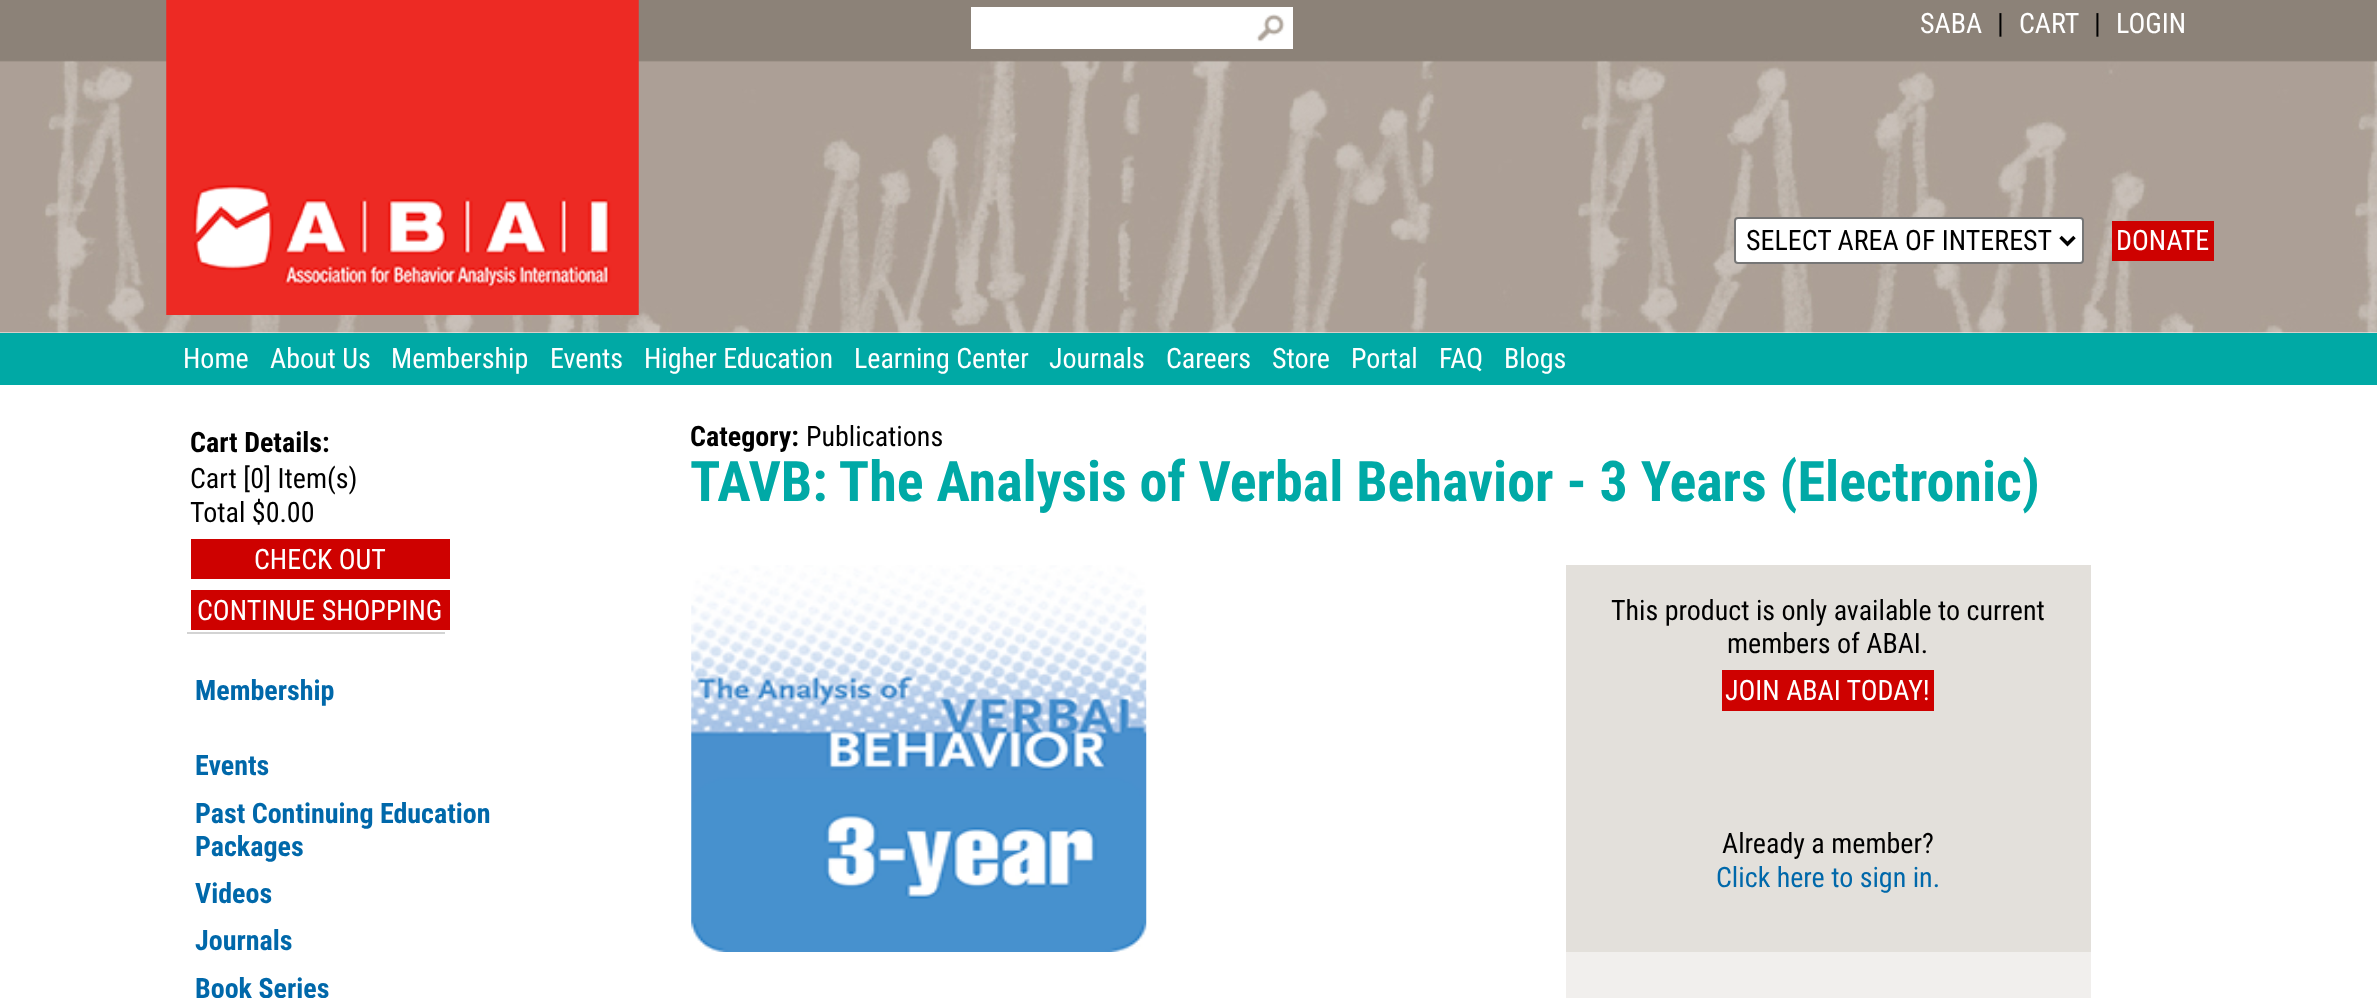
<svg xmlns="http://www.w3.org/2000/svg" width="2377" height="998">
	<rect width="100%" height="100%" fill="#FFFFFF" />
	<image x="0" y="0" width="2377" height="333" href="assets/img1.png" />
	<image x="166" y="0" width="473" height="315" href="assets/img2.png" />
	<rect x="971" y="7" width="322" height="42" fill="#FFFFFF" />
	<image x="1256" y="14" width="29" height="28" href="assets/img3.png" />
	<text x="1920" y="33" font-family="Roboto Condensed" font-size="28" fill="#FFFFFF">SABA</text>
	<text x="1997" y="33" font-family="Roboto Condensed" font-size="28" fill="#000000">|</text>
	<text x="2019" y="33" font-family="Roboto Condensed" font-size="28" fill="#FFFFFF">CART</text>
	<text x="2094" y="33" font-family="Roboto Condensed" font-size="28" fill="#000000">|</text>
	<text x="2116" y="33" font-family="Roboto Condensed" font-size="28" fill="#FFFFFF">LOGIN</text>
	<rect x="1735" y="218" width="348" height="45" rx="3" fill="#FFFFFF" stroke="#767676" stroke-width="2" />
	<path d="M2060.5 237L2067.5 244L2074.5 237" fill="none" stroke="#000000" stroke-width="3.5" />
	<text x="1746" y="250" font-family="Roboto Condensed" font-size="28" fill="#000000">SELECT AREA OF INTEREST</text>
	<rect x="2112" y="221" width="102" height="40" fill="#CE0100" />
	<text x="2116" y="250" font-family="Roboto Condensed" font-size="28" fill="#FFFFFF">DONATE</text>
	<rect x="0" y="333" width="2377" height="52" fill="#00A9A5" />
	<g font-family="Roboto Condensed" font-size="28" fill="#FFFFFF">
		<text x="183" y="368">Home</text>
		<text x="270" y="368">About Us</text>
		<text x="391" y="368">Membership</text>
		<text x="550" y="368">Events</text>
		<text x="644" y="368">Higher Education</text>
		<text x="854" y="368">Learning Center</text>
		<text x="1049" y="368">Journals</text>
		<text x="1166" y="368">Careers</text>
		<text x="1272" y="368">Store</text>
		<text x="1351" y="368">Portal</text>
		<text x="1439" y="368">FAQ</text>
		<text x="1504" y="368">Blogs</text>
	</g>
	<text x="190" y="452" font-family="Roboto Condensed" font-size="28" font-weight="700" fill="#000000">Cart Details:</text>
	<g font-family="Roboto Condensed" font-size="28" fill="#000000">
		<text x="190" y="488">Cart [0] Item(s)</text>
		<text x="190" y="522">Total $0.00</text>
	</g>
	<rect x="191" y="539" width="259" height="40" fill="#CE0100" />
	<text x="254" y="569" font-family="Roboto Condensed" font-size="28" fill="#FFFFFF">CHECK OUT</text>
	<rect x="187" y="632" width="258" height="2" fill="#D3D3D3" />
	<rect x="191" y="590" width="259" height="40" fill="#CE0100" />
	<text x="197" y="620" font-family="Roboto Condensed" font-size="28" fill="#FFFFFF">CONTINUE SHOPPING</text>
	<g font-family="Roboto Condensed" font-size="28" font-weight="700" fill="#0068AA">
		<text x="195" y="700">Membership</text>
		<text x="195" y="775">Events</text>
		<text x="195" y="823">Past Continuing Education</text>
		<text x="195" y="856">Packages</text>
		<text x="195" y="903">Videos</text>
		<text x="195" y="950">Journals</text>
		<text x="195" y="998">Book Series</text>
	</g>
	<text x="690" y="446" font-family="Roboto Condensed" font-size="28" font-weight="700" fill="#000000">Category:</text>
	<text x="806" y="446" font-family="Roboto Condensed" font-size="28" fill="#000000">Publications</text>
	<text x="690" y="501" font-family="Roboto Condensed" font-size="56" font-weight="700" fill="#00A9A6">TAVB: The Analysis of Verbal Behavior - 3 Years (Electronic)</text>
	<image x="691" y="565" width="456" height="387" href="assets/img4.png" />
	<rect x="1566" y="952" width="525" height="46" fill="#F1EFED" />
	<rect x="1566" y="565" width="525" height="387" fill="#E3E0DB" />
	<g font-family="Roboto Condensed" font-size="28" fill="#000000">
		<text x="1611" y="620">This product is only available to current</text>
		<text x="1727" y="653">members of ABAI.</text>
	</g>
	<rect x="1722" y="670" width="212" height="41" fill="#CE0100" />
	<text x="1725" y="700" font-family="Roboto Condensed" font-size="28" fill="#FFFFFF">JOIN ABAI TODAY!</text>
	<text x="1722" y="853" font-family="Roboto Condensed" font-size="28" fill="#000000">Already a member?</text>
	<text x="1716" y="887" font-family="Roboto Condensed" font-size="28" fill="#0068AA">Click here to sign in.</text>
</svg>
